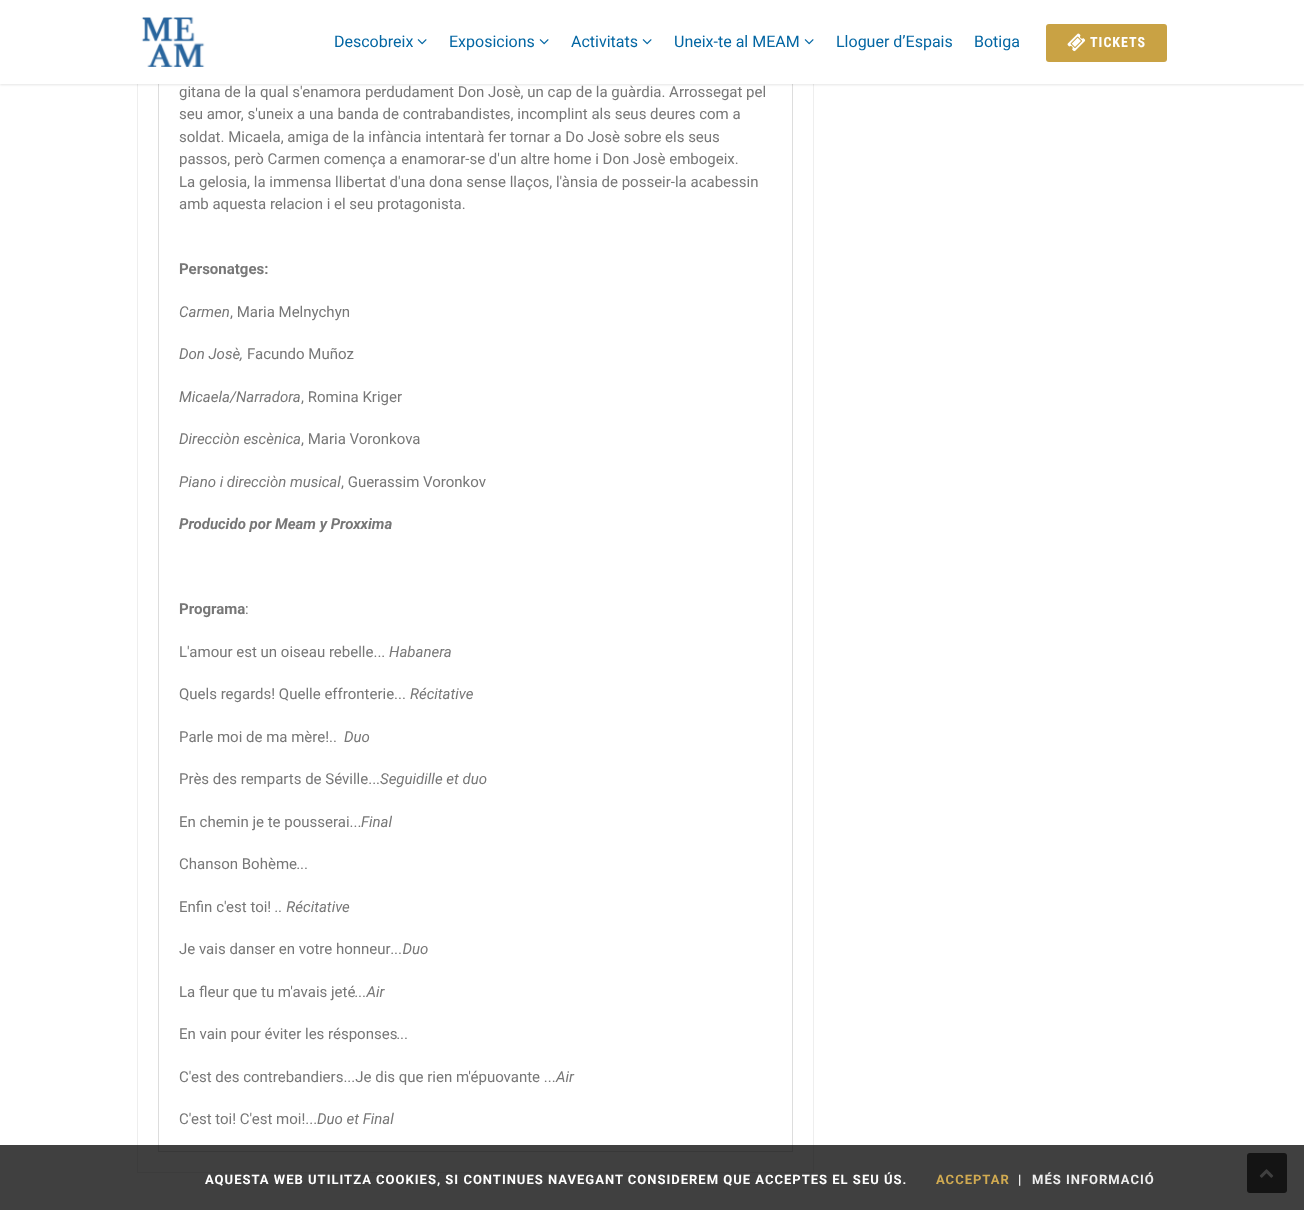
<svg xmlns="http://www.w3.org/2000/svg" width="1304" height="1210">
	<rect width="100%" height="100%" fill="#FFFFFF" />
	<rect x="137.5" y="-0.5" width="676" height="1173" fill="none" stroke="#EEEEEE" />
	<rect x="792" y="84" width="1" height="1068" fill="#DDDDDD" />
	<rect x="158" y="1151" width="635" height="1" fill="#DDDDDD" />
	<rect x="158" y="84" width="1" height="1068" fill="#DDDDDD" />
	<rect x="0" y="1" width="1304" height="84" fill="#000000" fill-opacity="0.1" filter="blur(1px)" />
	<rect x="0" y="0" width="1304" height="84" fill="#FFFFFF" />
	<image x="141" y="17" width="64" height="50" href="assets/img1.png" />
	<text x="334" y="47" font-family="Roboto" font-size="16" fill="#0366A3">Descobreix</text>
	<image x="417" y="39" width="10" height="6" href="assets/img2.png" />
	<text x="449" y="47" font-family="Roboto" font-size="16" fill="#0366A3">Exposicions</text>
	<image x="539" y="39" width="10" height="6" href="assets/img2.png" />
	<text x="571" y="47" font-family="Roboto" font-size="16" fill="#0366A3">Activitats</text>
	<image x="642" y="39" width="10" height="6" href="assets/img2.png" />
	<text x="674" y="47" font-family="Roboto" font-size="16" fill="#0366A3">Uneix-te al MEAM</text>
	<image x="804" y="39" width="10" height="6" href="assets/img2.png" />
	<g font-family="Roboto" font-size="16" fill="#0366A3">
		<text x="836" y="47">Lloguer d’Espais</text>
		<text x="974" y="47">Botiga</text>
	</g>
	<rect x="1046" y="24" width="121" height="38" rx="3" fill="#C9A244" />
	<image x="1067" y="33" width="19" height="19" href="assets/img3.png" />
	<text x="1090" y="47" font-family="Roboto Condensed" font-size="14" font-weight="700" letter-spacing="1" fill="#FFFFFF">TICKETS</text>
	<g font-family="Roboto" font-size="15" fill="#777777">
		<text x="179" y="97">gitana de la qual s'enamora perdudament Don Josè, un cap de la guàrdia. Arrossegat pel</text>
		<text x="179" y="119">seu amor, s'uneix a una banda de contrabandistes, incomplint als seus deures com a</text>
		<text x="179" y="142">soldat. Micaela, amiga de la infància intentarà fer tornar a Do Josè sobre els seus</text>
		<text x="179" y="164">passos, però Carmen comença a enamorar-se d'un altre home i Don Josè embogeix.</text>
		<text x="179" y="187">La gelosia, la immensa llibertat d'una dona sense llaços, l'ànsia de posseir-la acabessin</text>
		<text x="179" y="209">amb aquesta relacion i el seu protagonista.</text>
	</g>
	<text x="179" y="274" font-family="Roboto" font-size="15" font-weight="700" fill="#777777">Personatges:</text>
	<text x="179" y="317" font-family="Roboto" font-size="15" font-style="italic" fill="#777777">Carmen</text>
	<text x="230" y="317" font-family="Roboto" font-size="15" fill="#777777">, Maria Melnychyn</text>
	<text x="179" y="359" font-family="Roboto" font-size="15" font-style="italic" fill="#777777">Don Josè,</text>
	<text x="247" y="359" font-family="Roboto" font-size="15" fill="#777777">Facundo Muñoz</text>
	<text x="179" y="402" font-family="Roboto" font-size="15" font-style="italic" fill="#777777">Micaela/Narradora</text>
	<text x="301" y="402" font-family="Roboto" font-size="15" fill="#777777">, Romina Kriger</text>
	<text x="179" y="444" font-family="Roboto" font-size="15" font-style="italic" fill="#777777">Direcciòn escènica</text>
	<text x="301" y="444" font-family="Roboto" font-size="15" fill="#777777">, Maria Voronkova</text>
	<text x="179" y="487" font-family="Roboto" font-size="15" font-style="italic" fill="#777777">Piano i direcciòn musical</text>
	<text x="341" y="487" font-family="Roboto" font-size="15" fill="#777777">, Guerassim Voronkov</text>
	<text x="179" y="529" font-family="Roboto" font-size="15" font-weight="700" font-style="italic" fill="#777777">Producido por Meam y Proxxima</text>
	<text x="179" y="614" font-family="Roboto" font-size="15" font-weight="700" fill="#777777">Programa</text>
	<g font-family="Roboto" font-size="15" fill="#777777">
		<text x="245" y="614">:</text>
		<text x="179" y="657">L'amour est un oiseau rebelle...</text>
	</g>
	<text x="389" y="657" font-family="Roboto" font-size="15" font-style="italic" fill="#777777">Habanera</text>
	<text x="179" y="699" font-family="Roboto" font-size="15" fill="#777777">Quels regards! Quelle effronterie...</text>
	<text x="410" y="699" font-family="Roboto" font-size="15" font-style="italic" fill="#777777">Récitative</text>
	<text x="179" y="742" font-family="Roboto" font-size="15" fill="#777777">Parle moi de ma mère!..</text>
	<text x="344" y="742" font-family="Roboto" font-size="15" font-style="italic" fill="#777777">Duo</text>
	<text x="179" y="784" font-family="Roboto" font-size="15" fill="#777777">Près des remparts de Séville...</text>
	<text x="380" y="784" font-family="Roboto" font-size="15" font-style="italic" fill="#777777">Seguidille et duo</text>
	<text x="179" y="827" font-family="Roboto" font-size="15" fill="#777777">En chemin je te pousserai...</text>
	<text x="361" y="827" font-family="Roboto" font-size="15" font-style="italic" fill="#777777">Final</text>
	<text x="179" y="869" font-family="Roboto" font-size="15" fill="#777777">Chanson Bohème</text>
	<text x="297" y="869" font-family="Roboto" font-size="15" font-style="italic" fill="#777777">...</text>
	<text x="179" y="912" font-family="Roboto" font-size="15" fill="#777777">Enfin c'est toi!</text>
	<text x="275" y="912" font-family="Roboto" font-size="15" font-style="italic" fill="#777777">.. Récitative</text>
	<text x="179" y="954" font-family="Roboto" font-size="15" fill="#777777">Je vais danser en votre honneur</text>
	<text x="391" y="954" font-family="Roboto" font-size="15" font-style="italic" fill="#777777">...Duo</text>
	<text x="179" y="997" font-family="Roboto" font-size="15" fill="#777777">La fleur que tu m'avais jeté</text>
	<text x="355" y="997" font-family="Roboto" font-size="15" font-style="italic" fill="#777777">...Air</text>
	<text x="179" y="1039" font-family="Roboto" font-size="15" fill="#777777">En vain pour éviter les résponses</text>
	<text x="397" y="1039" font-family="Roboto" font-size="15" font-style="italic" fill="#777777">...</text>
	<text x="179" y="1082" font-family="Roboto" font-size="15" fill="#777777">C'est des contrebandiers...Je dis que rien m'épuovante ...</text>
	<text x="556" y="1082" font-family="Roboto" font-size="15" font-style="italic" fill="#777777">Air</text>
	<text x="179" y="1124" font-family="Roboto" font-size="15" fill="#777777">C'est toi! C'est moi!...</text>
	<text x="317" y="1124" font-family="Roboto" font-size="15" font-style="italic" fill="#777777">Duo et Final</text>
	<rect x="1247" y="1153" width="40" height="40" rx="3" fill="#4F4F4F" />
	<image x="1259" y="1169" width="15" height="9" href="assets/img4.png" />
	<rect x="0" y="1145" width="1304" height="65" fill="#000000" fill-opacity="0.75" />
	<text x="205" y="1184" font-family="Roboto" font-size="13" font-weight="700" letter-spacing="1" fill="#FFFFFF">AQUESTA WEB UTILITZA COOKIES, SI CONTINUES NAVEGANT CONSIDEREM QUE ACCEPTES EL SEU ÚS.</text>
	<text x="936" y="1184" font-family="Roboto" font-size="13" font-weight="700" letter-spacing="1" fill="#D0AA51">ACCEPTAR</text>
	<text x="1018" y="1184" font-family="Roboto" font-size="13" font-weight="700" letter-spacing="1" fill="#FFFFFF">|</text>
	<text x="1032" y="1184" font-family="Roboto" font-size="13" font-weight="700" letter-spacing="1" fill="#EEEEEE">MÉS INFORMACIÓ</text>
</svg>
